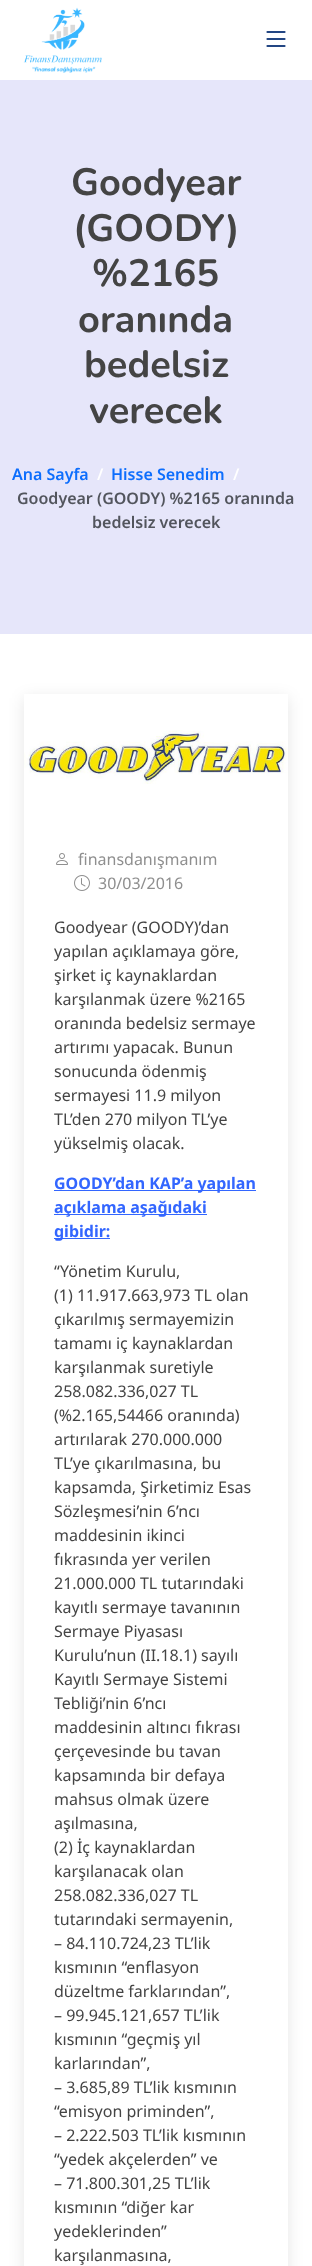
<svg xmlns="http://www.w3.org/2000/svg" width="312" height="2266">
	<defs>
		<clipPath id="clip1"><path d="M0 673H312V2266H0ZM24 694H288V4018H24Z" clip-rule="evenodd" /></clipPath>
	</defs>
	<rect width="100%" height="100%" fill="#FFFFFF" />
	<image x="23" y="7" width="79" height="66" href="assets/img1.png" />
	<image x="266" y="31" width="20" height="16" href="assets/img2.png" />
	<rect x="0" y="80" width="312" height="554" fill="#E6E6FA" />
	<g font-family="Nunito" font-size="38" font-weight="700" fill="#444444">
		<text x="71" y="195">Goodyear</text>
		<text x="73" y="241">(GOODY)</text>
		<text x="92" y="286">%2165</text>
		<text x="78" y="332">oranında</text>
		<text x="84" y="377">bedelsiz</text>
		<text x="89" y="423">verecek</text>
	</g>
	<text x="12" y="480" font-family="Noto Sans" font-size="16" font-weight="600" fill="#0D6EFD">Ana Sayfa</text>
	<text x="97" y="480" font-family="Noto Sans" font-size="16" font-weight="600" fill="#FFFFFF">/</text>
	<text x="111" y="480" font-family="Noto Sans" font-size="16" font-weight="600" fill="#0D6EFD">Hisse Senedim</text>
	<text x="233" y="480" font-family="Noto Sans" font-size="16" font-weight="600" fill="#FFFFFF">/</text>
	<g font-family="Noto Sans" font-size="16" font-weight="600" fill="#52555D">
		<text x="17" y="504">Goodyear (GOODY) %2165 oranında</text>
		<text x="92" y="528">bedelsiz verecek</text>
	</g>
	<g clip-path="url(#clip1)">
		<rect x="24" y="698" width="264" height="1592" fill="#000000" fill-opacity="0.1" filter="blur(8px)" />
	</g>
	<image x="24" y="730" width="264" height="54" href="assets/img3.png" />
	<image x="56" y="853" width="12" height="12" href="assets/img4.png" />
	<text x="78" y="865" font-family="Noto Sans" font-size="16" fill="#8F8F8F">finansdanışmanım</text>
	<image x="74" y="875" width="16" height="16" href="assets/img5.png" />
	<text x="98" y="889" font-family="Noto Sans" font-size="16" fill="#8F8F8F">30/03/2016</text>
	<g font-family="Noto Sans" font-size="16" fill="#444444">
		<text x="54" y="933">Goodyear (GOODY)’dan</text>
		<text x="54" y="957">yapılan açıklamaya göre,</text>
		<text x="54" y="981">şirket iç kaynaklardan</text>
		<text x="54" y="1005">karşılanmak üzere %2165</text>
		<text x="54" y="1029">oranında bedelsiz sermaye</text>
		<text x="54" y="1053">artırımı yapacak. Bunun</text>
		<text x="54" y="1077">sonucunda ödenmiş</text>
		<text x="54" y="1101">sermayesi 11.9 milyon</text>
		<text x="54" y="1125">TL’den 270 milyon TL’ye</text>
		<text x="54" y="1149">yükselmiş olacak.</text>
	</g>
	<rect x="54" y="1190" width="202" height="1" fill="#3366FF" />
	<text x="54" y="1189" font-family="Noto Sans" font-size="16" font-weight="700" fill="#3366FF">GOODY’dan KAP’a yapılan</text>
	<rect x="54" y="1214" width="153" height="1" fill="#3366FF" />
	<text x="54" y="1213" font-family="Noto Sans" font-size="16" font-weight="700" fill="#3366FF">açıklama aşağıdaki</text>
	<rect x="54" y="1238" width="56" height="1" fill="#3366FF" />
	<text x="54" y="1237" font-family="Noto Sans" font-size="16" font-weight="700" fill="#3366FF">gibidir:</text>
	<g font-family="Noto Sans" font-size="16" fill="#444444">
		<text x="54" y="1277">“Yönetim Kurulu,</text>
		<text x="54" y="1301">(1) 11.917.663,973 TL olan</text>
		<text x="54" y="1325">çıkarılmış sermayemizin</text>
		<text x="54" y="1349">tamamı iç kaynaklardan</text>
		<text x="54" y="1373">karşılanmak suretiyle</text>
		<text x="54" y="1397">258.082.336,027 TL</text>
		<text x="54" y="1421">(%2.165,54466 oranında)</text>
		<text x="54" y="1445">artırılarak 270.000.000</text>
		<text x="54" y="1469">TL’ye çıkarılmasına, bu</text>
		<text x="54" y="1493">kapsamda, Şirketimiz Esas</text>
		<text x="54" y="1517">Sözleşmesi’nin 6’ncı</text>
		<text x="54" y="1541">maddesinin ikinci</text>
		<text x="54" y="1565">fıkrasında yer verilen</text>
		<text x="54" y="1589">21.000.000 TL tutarındaki</text>
		<text x="54" y="1613">kayıtlı sermaye tavanının</text>
		<text x="54" y="1637">Sermaye Piyasası</text>
		<text x="54" y="1661">Kurulu’nun (II.18.1) sayılı</text>
		<text x="54" y="1685">Kayıtlı Sermaye Sistemi</text>
		<text x="54" y="1709">Tebliği’nin 6’ncı</text>
		<text x="54" y="1733">maddesinin altıncı fıkrası</text>
		<text x="54" y="1757">çerçevesinde bu tavan</text>
		<text x="54" y="1781">kapsamında bir defaya</text>
		<text x="54" y="1805">mahsus olmak üzere</text>
		<text x="54" y="1829">aşılmasına,</text>
		<text x="54" y="1853">(2) İç kaynaklardan</text>
		<text x="54" y="1877">karşılanacak olan</text>
		<text x="54" y="1901">258.082.336,027 TL</text>
		<text x="54" y="1925">tutarındaki sermayenin,</text>
		<text x="54" y="1949">– 84.110.724,23 TL’lik</text>
		<text x="54" y="1973">kısmının “enflasyon</text>
		<text x="54" y="1997">düzeltme farklarından”,</text>
		<text x="54" y="2021">– 99.945.121,657 TL’lik</text>
		<text x="54" y="2045">kısmının “geçmiş yıl</text>
		<text x="54" y="2069">karlarından”,</text>
		<text x="54" y="2093">– 3.685,89 TL’lik kısmının</text>
		<text x="54" y="2117">“emisyon priminden”,</text>
		<text x="54" y="2141">– 2.222.503 TL’lik kısmının</text>
		<text x="54" y="2165">“yedek akçelerden” ve</text>
		<text x="54" y="2189">– 71.800.301,25 TL’lik</text>
		<text x="54" y="2213">kısmının “diğer kar</text>
		<text x="54" y="2237">yedeklerinden”</text>
		<text x="54" y="2261">karşılanmasına,</text>
	</g>
</svg>
